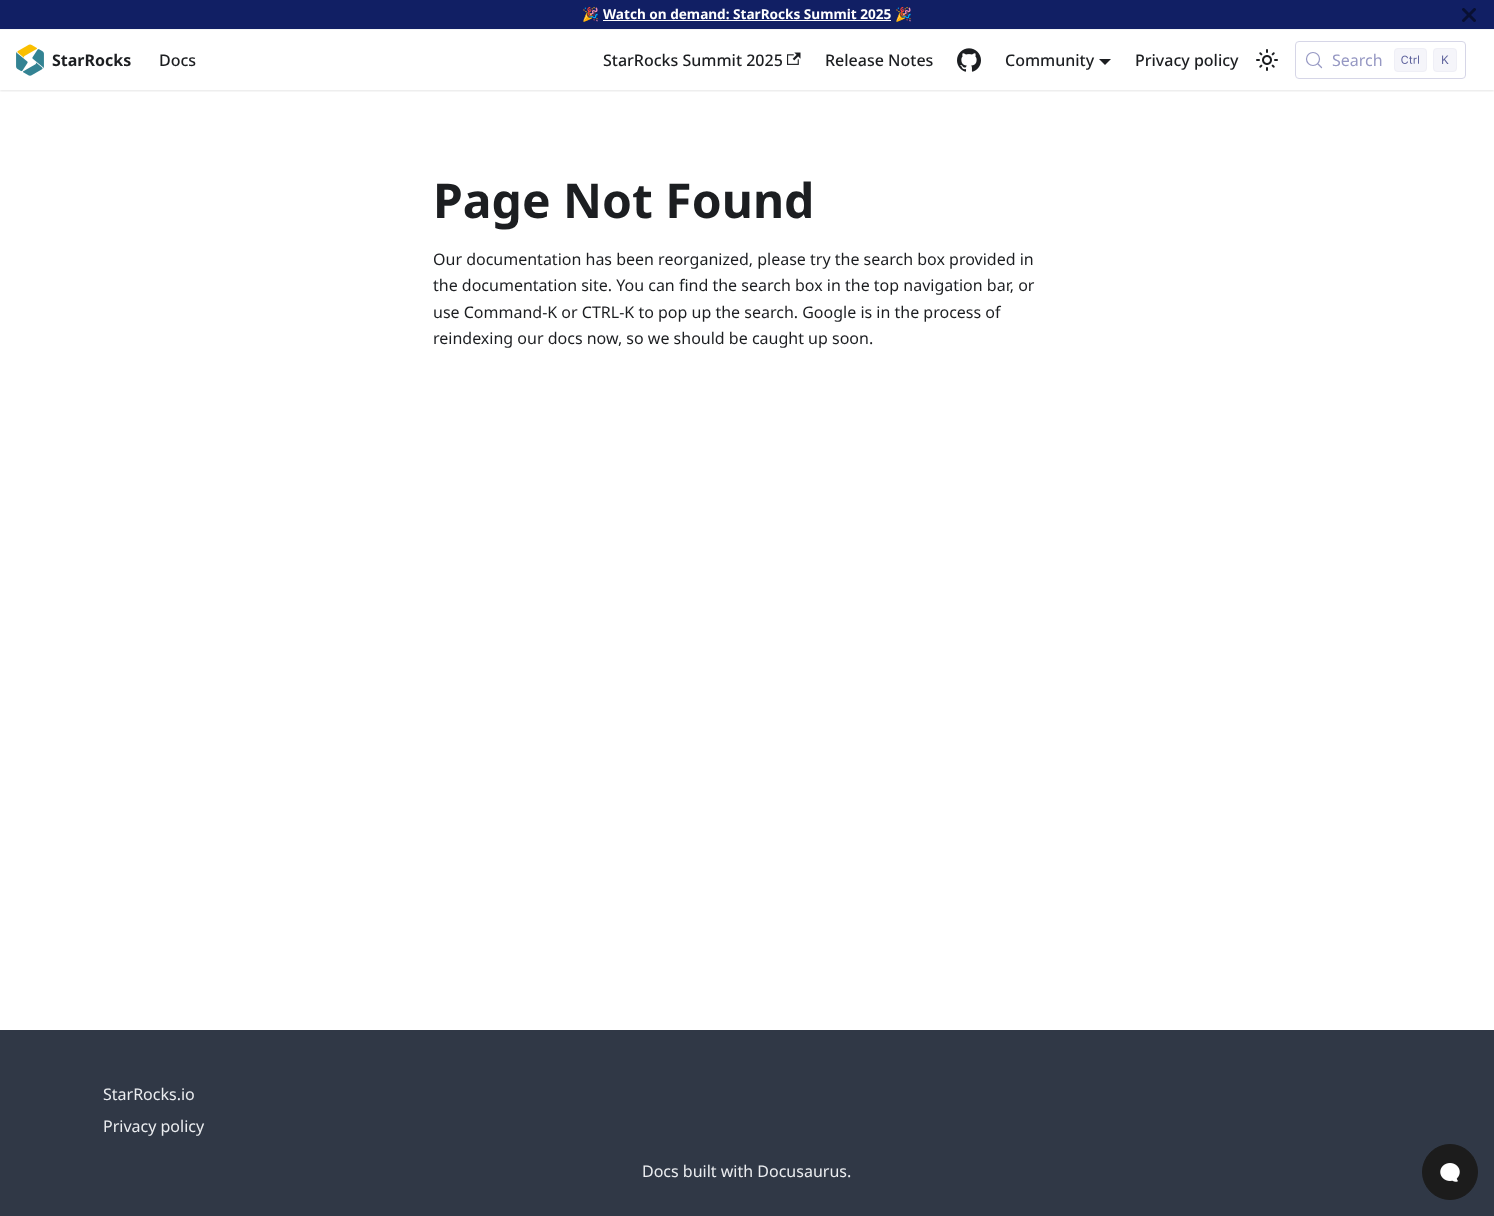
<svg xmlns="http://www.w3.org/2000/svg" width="1494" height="1216">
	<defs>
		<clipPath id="clip1"><rect x="1462" y="8" width="14" height="14" /></clipPath>
		<clipPath id="clip2"><rect x="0" y="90" width="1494" height="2" /></clipPath>
	</defs>
	<rect width="100%" height="100%" fill="#FFFFFF" />
	<rect x="0" y="0" width="1494" height="29" fill="#111F64" />
	<rect x="0" y="29" width="1494" height="1" fill="#F5F6F7" />
	<text x="582" y="19" font-family="Noto Color Emoji" font-size="13.6" fill="#FFFFFF">🎉️</text>
	<text x="603" y="19" font-family="Noto Sans" font-size="13.6" font-weight="700" fill="#FFFFFF">Watch on demand: StarRocks Summit 2025</text>
	<rect x="603" y="20" width="288" height="1" fill="#FFFFFF" />
	<text x="895" y="19" font-family="Noto Color Emoji" font-size="13.6" fill="#FFFFFF">🎉️</text>
	<g clip-path="url(#clip1)">
		<path d="M1462.5 8.5L1475.5 21.5M1475.5 8.5L1462.5 21.5" fill="none" stroke="#091032" stroke-width="2.9" />
	</g>
	<g clip-path="url(#clip2)">
		<rect x="0" y="31" width="1494" height="60" fill="#000000" fill-opacity="0.1" filter="blur(1px)" />
	</g>
	<image x="16" y="44" width="28" height="32" href="assets/img1.png" />
	<text x="52" y="66" font-family="Noto Sans" font-size="16" font-weight="700" fill="#1C1E21">StarRocks</text>
	<g font-family="Noto Sans" font-size="16" font-weight="500" fill="#1C1E21">
		<text x="159" y="66">Docs</text>
		<text x="603" y="66">StarRocks Summit 2025</text>
	</g>
	<image x="787" y="52" width="14" height="13" href="assets/img2.png" />
	<text x="825" y="66" font-family="Noto Sans" font-size="16" font-weight="500" fill="#1C1E21">Release Notes</text>
	<image x="957" y="48" width="24" height="24" href="assets/img3.png" />
	<text x="1005" y="66" font-family="Noto Sans" font-size="16" font-weight="500" fill="#1C1E21">Community</text>
	<path d="M1099 59H1111L1105 65Z" fill="#1C1E21" />
	<text x="1135" y="66" font-family="Noto Sans" font-size="16" font-weight="500" fill="#1C1E21">Privacy policy</text>
	<image x="1256" y="49" width="22" height="22" href="assets/img4.png" />
	<rect x="1295.5" y="41.5" width="170" height="37" rx="3.5" fill="none" stroke="#D6D6E7" />
	<circle cx="1313" cy="59" r="6.5" fill="none" stroke="#9698C3" stroke-width="1.2" />
	<path d="M1321.5 67.5L1318 64" fill="none" stroke="#9698C3" stroke-width="1.3" stroke-linecap="round" stroke-linejoin="round" />
	<text x="1332" y="66" font-family="Noto Sans" font-size="16" fill="#9698C3">Search</text>
	<rect x="1394" y="48" width="33" height="24" rx="4" fill="#F5F5FA" />
	<rect x="1394.5" y="48.5" width="32" height="23" rx="3.5" fill="none" stroke="#D6D6E7" stroke-opacity="0.2" />
	<image x="1401" y="55" width="18" height="9" href="assets/img5.png" />
	<rect x="1433" y="48" width="24" height="24" rx="4" fill="#F5F5FA" />
	<rect x="1433.5" y="48.5" width="23" height="23" rx="3.5" fill="none" stroke="#D6D6E7" stroke-opacity="0.2" />
	<image x="1442" y="55" width="7" height="9" href="assets/img6.png" />
	<text x="433" y="218" font-family="Noto Sans" font-size="48" font-weight="700" fill="#1C1E21">Page Not Found</text>
	<g font-family="Noto Sans" font-size="16" fill="#1C1E21">
		<text x="433" y="265">Our documentation has been reorganized, please try the search box provided in</text>
		<text x="433" y="291">the documentation site. You can find the search box in the top navigation bar, or</text>
		<text x="433" y="318">use Command-K or CTRL-K to pop up the search. Google is in the process of</text>
		<text x="433" y="344">reindexing our docs now, so we should be caught up soon.</text>
	</g>
	<rect x="0" y="1030" width="1494" height="186" fill="#303846" />
	<g font-family="Noto Sans" font-size="16" fill="#EBEDF0">
		<text x="103" y="1100">StarRocks.io</text>
		<text x="103" y="1132">Privacy policy</text>
		<text x="642" y="1177">Docs built with Docusaurus.</text>
	</g>
	<circle cx="1450" cy="1172" r="27.5" fill="#1C1C1C" stroke="#1C1C1C" />
	<image x="1440" y="1163" width="20" height="19" href="assets/img7.png" />
</svg>
